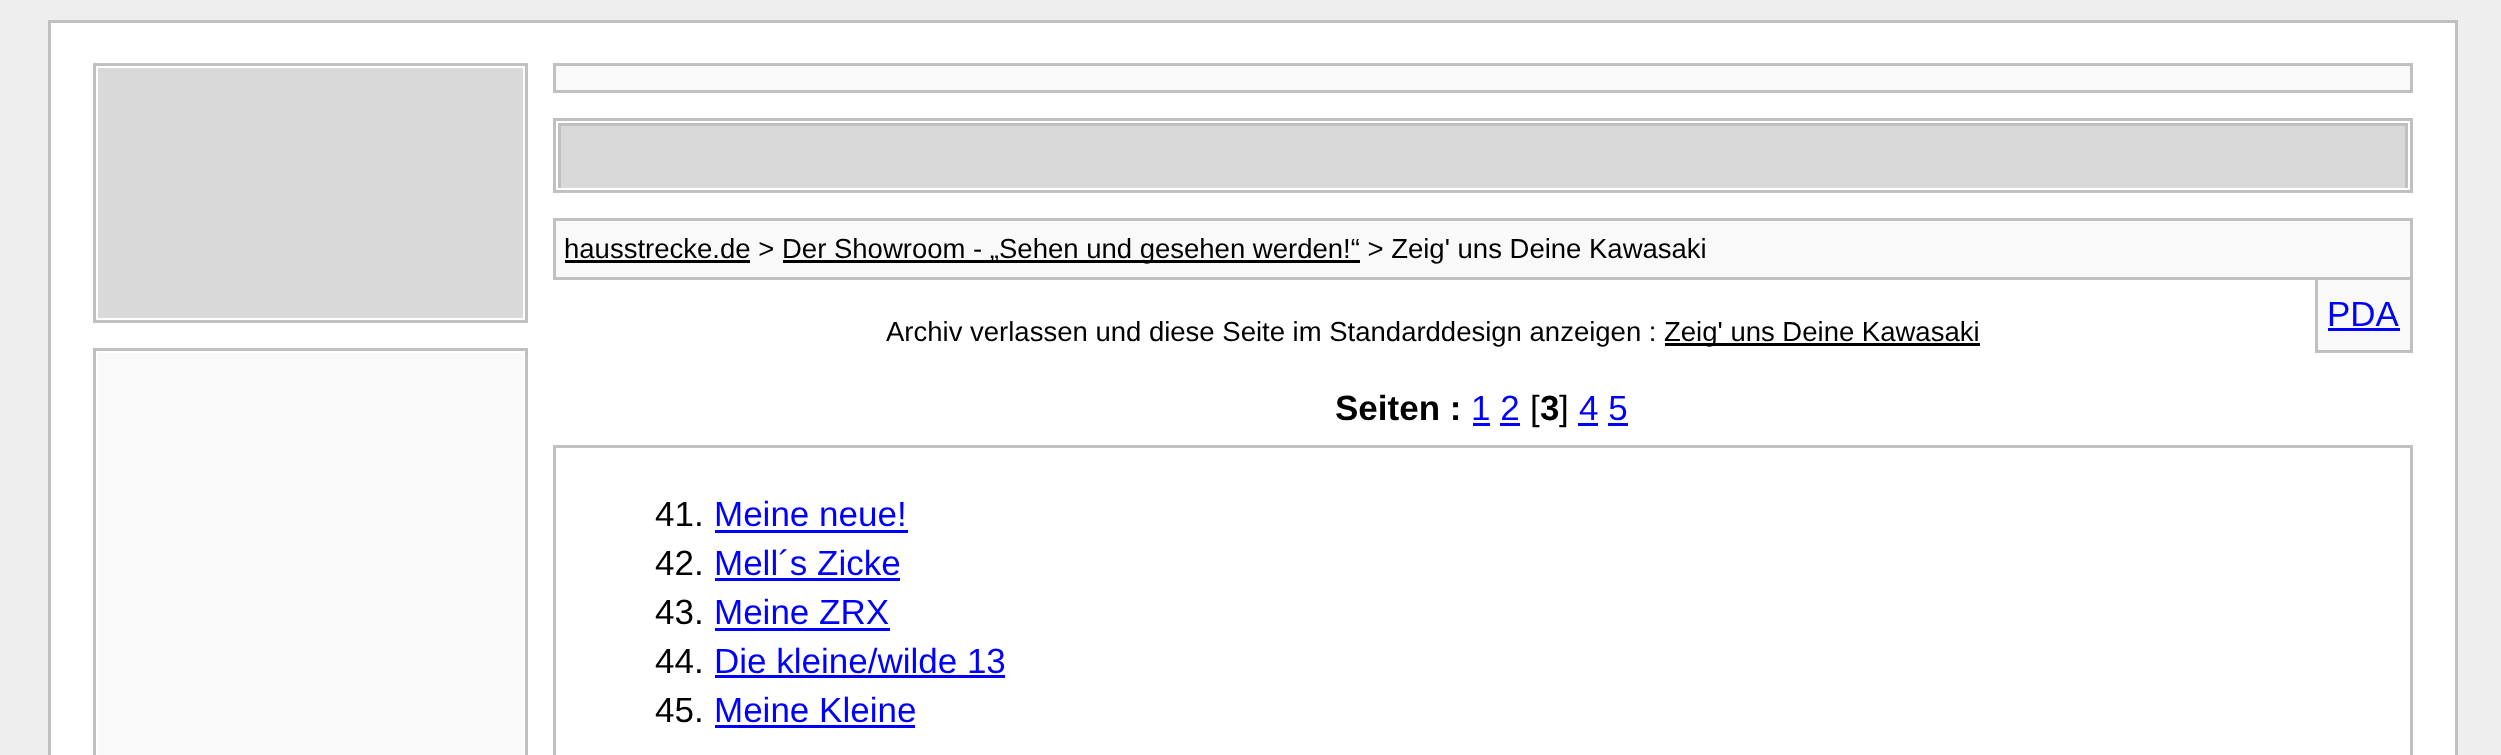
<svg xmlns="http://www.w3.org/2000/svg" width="2501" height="755">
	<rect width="100%" height="100%" fill="#EEEEEE" />
	<rect x="49.5" y="21.5" width="2407" height="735" fill="#FFFFFF" stroke="#C0C0C0" stroke-width="3" />
	<rect x="94.5" y="64.5" width="432" height="257" fill="none" stroke="#C0C0C0" stroke-width="3" />
	<rect x="98" y="68" width="425" height="250" fill="#D9D9D9" />
	<rect x="94.5" y="349.5" width="432" height="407" fill="none" stroke="#C0C0C0" stroke-width="3" />
	<rect x="98" y="353" width="425" height="402" fill="#F9F9F9" />
	<rect x="554.5" y="64.5" width="1857" height="27" fill="#F9F9F9" stroke="#C0C0C0" stroke-width="3" />
	<rect x="554.5" y="119.5" width="1857" height="72" fill="none" stroke="#C0C0C0" stroke-width="3" />
	<rect x="561" y="126" width="1844" height="62" fill="#D9D9D9" />
	<rect x="558" y="123" width="1850" height="3" fill="#C0C0C0" />
	<rect x="2405" y="123" width="3" height="65" fill="#C0C0C0" />
	<rect x="558" y="123" width="3" height="65" fill="#C0C0C0" />
	<rect x="554.5" y="219.5" width="1857" height="59" fill="#F9F9F9" stroke="#C0C0C0" stroke-width="3" />
	<text x="564" y="258" font-family="Liberation Sans" font-size="27.5" fill="#000000">hausstrecke.de &gt;</text>
	<rect x="565" y="260" width="185" height="3" fill="#000000" />
	<rect x="783" y="260" width="577" height="3" fill="#000000" />
	<text x="782" y="258" font-family="Liberation Sans" font-size="27.5" fill="#000000">Der Showroom - „Sehen und gesehen werden!“ &gt; Zeig' uns Deine Kawasaki</text>
	<rect x="2318" y="280" width="92" height="70" fill="#F9F9F9" />
	<rect x="2410" y="280" width="3" height="73" fill="#C0C0C0" />
	<rect x="2315" y="350" width="98" height="3" fill="#C0C0C0" />
	<rect x="2315" y="280" width="3" height="73" fill="#C0C0C0" />
	<text x="2327" y="326" font-family="Liberation Sans" font-size="35" fill="#0000FF">PDA</text>
	<rect x="2328" y="328" width="72" height="3" fill="#0000FF" />
	<text x="886" y="341" font-family="Liberation Sans" font-size="27.5" fill="#000000">Archiv verlassen und diese Seite im Standarddesign anzeigen :</text>
	<rect x="1665" y="343" width="315" height="3" fill="#000000" />
	<text x="1664" y="341" font-family="Liberation Sans" font-size="27.5" fill="#000000">Zeig' uns Deine Kawasaki</text>
	<text x="1335" y="420" font-family="Liberation Sans" font-size="35" font-weight="700" fill="#000000">Seiten :</text>
	<text x="1471" y="420" font-family="Liberation Sans" font-size="35" fill="#0000FF">1 2</text>
	<rect x="1473" y="423" width="17" height="3" fill="#0000FF" />
	<text x="1530" y="420" font-family="Liberation Sans" font-size="35" fill="#000000">[</text>
	<text x="1540" y="420" font-family="Liberation Sans" font-size="35" font-weight="700" fill="#000000">3</text>
	<text x="1559" y="420" font-family="Liberation Sans" font-size="35" fill="#000000">]</text>
	<text x="1579" y="420" font-family="Liberation Sans" font-size="35" fill="#0000FF">4 5</text>
	<rect x="1578" y="423" width="20" height="3" fill="#0000FF" />
	<rect x="1500" y="423" width="20" height="3" fill="#0000FF" />
	<rect x="1608" y="423" width="20" height="3" fill="#0000FF" />
	<rect x="554.5" y="446.5" width="1857" height="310" fill="none" stroke="#C0C0C0" stroke-width="3" />
	<text x="655" y="526" font-family="Liberation Sans" font-size="35" fill="#000000">41.</text>
	<text x="714" y="526" font-family="Liberation Sans" font-size="35" fill="#0000FF">Meine neue!</text>
	<rect x="715" y="530" width="193" height="3" fill="#0000FF" />
	<text x="655" y="575" font-family="Liberation Sans" font-size="35" fill="#000000">42.</text>
	<text x="714" y="575" font-family="Liberation Sans" font-size="35" fill="#0000FF">Mell´s Zicke</text>
	<rect x="715" y="578" width="185" height="3" fill="#0000FF" />
	<text x="655" y="624" font-family="Liberation Sans" font-size="35" fill="#000000">43.</text>
	<text x="714" y="624" font-family="Liberation Sans" font-size="35" fill="#0000FF">Meine ZRX</text>
	<rect x="715" y="628" width="175" height="3" fill="#0000FF" />
	<text x="655" y="673" font-family="Liberation Sans" font-size="35" fill="#000000">44.</text>
	<text x="714" y="673" font-family="Liberation Sans" font-size="35" fill="#0000FF">Die kleine/wilde 13</text>
	<rect x="715" y="675" width="290" height="3" fill="#0000FF" />
	<text x="655" y="722" font-family="Liberation Sans" font-size="35" fill="#000000">45.</text>
	<text x="714" y="722" font-family="Liberation Sans" font-size="35" fill="#0000FF">Meine Kleine</text>
	<rect x="715" y="725" width="200" height="3" fill="#0000FF" />
</svg>
